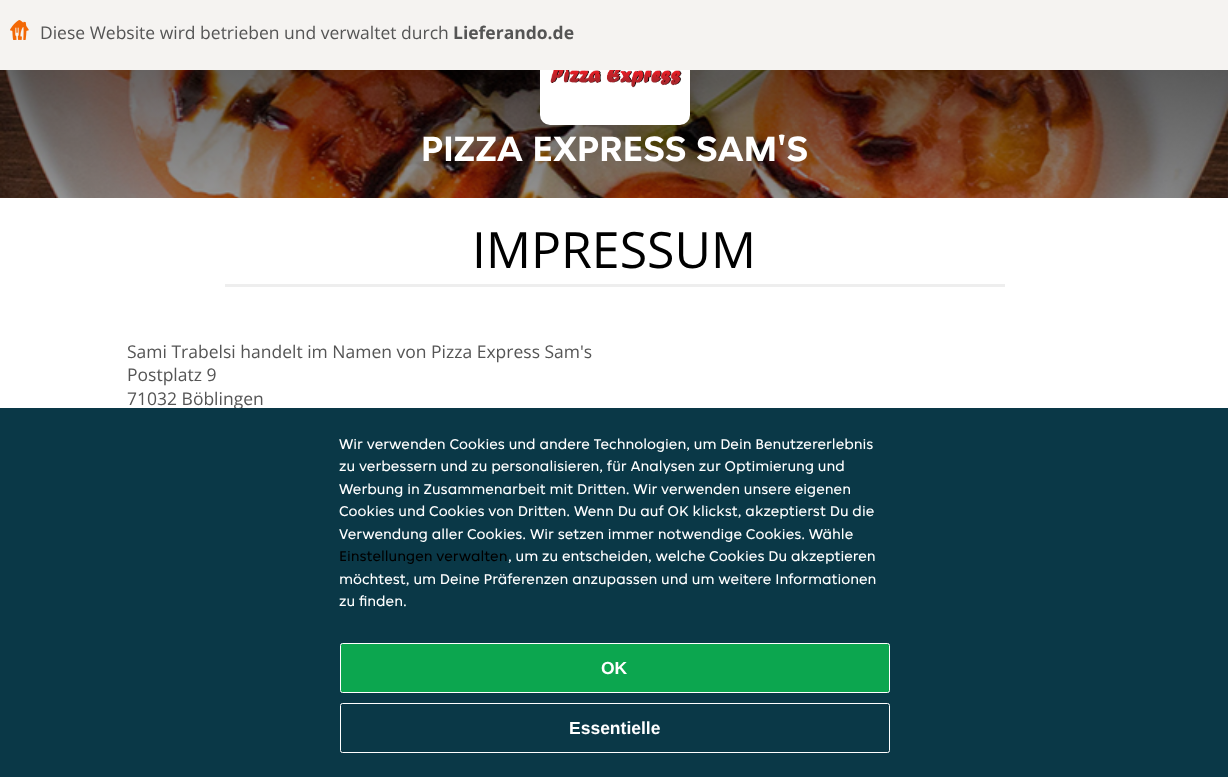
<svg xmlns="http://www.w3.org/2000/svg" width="1228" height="777">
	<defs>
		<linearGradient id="g1" gradientUnits="userSpaceOnUse" x1="614" y1="0" x2="614" y2="625"><stop offset="0" stop-color="#000000" stop-opacity="0.7" /><stop offset="0.33" stop-color="#000000" stop-opacity="0.4" /><stop offset="0.67" stop-color="#000000" stop-opacity="0.2" /><stop offset="1" stop-color="#000000" stop-opacity="0" /></linearGradient>
	</defs>
	<rect width="100%" height="100%" fill="#FFFFFF" />
	<image x="0" y="70" width="1228" height="128" href="assets/img2.png" />
	<rect x="0" y="70" width="1228" height="128" fill="url(#g1)" />
	<rect x="540" y="-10" width="150" height="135" rx="10" fill="#FFFFFF" />
	<rect x="0" y="0" width="1228" height="70" fill="#F5F3F1" />
	<image x="10" y="20" width="19" height="20" href="assets/img1.png" />
	<text x="40" y="39" font-family="Open Sans" font-size="17.5" fill="#555555">Diese Website wird betrieben und verwaltet durch</text>
	<text x="453" y="39" font-family="Open Sans" font-size="17.5" font-weight="700" fill="#555555">Lieferando.de</text>
	<image x="550" y="70" width="132" height="18" href="assets/img3.png" />
	<text x="421" y="161" font-family="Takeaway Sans" font-size="37.5" font-weight="700" fill="#FFFFFF">PIZZA EXPRESS SAM'S</text>
	<text x="472" y="268" font-family="Open Sans" font-size="50" fill="#000000">IMPRESSUM</text>
	<rect x="225" y="284" width="780" height="3" fill="#EEEEEE" />
	<g font-family="Open Sans" font-size="17.5" fill="#555555">
		<text x="127" y="358">Sami Trabelsi handelt im Namen von Pizza Express Sam's</text>
		<text x="127" y="381">Postplatz 9</text>
		<text x="127" y="405">71032 Böblingen</text>
	</g>
	<rect x="0" y="408" width="1228" height="369" fill="#0A3847" />
	<g font-family="Takeaway Sans" font-size="15" fill="#FFFFFF">
		<text x="339" y="449">Wir verwenden Cookies und andere Technologien, um Dein Benutzererlebnis</text>
		<text x="339" y="471">zu verbessern und zu personalisieren, für Analysen zur Optimierung und</text>
		<text x="339" y="494">Werbung in Zusammenarbeit mit Dritten. Wir verwenden unsere eigenen</text>
		<text x="339" y="516">Cookies und Cookies von Dritten. Wenn Du auf OK klickst, akzeptierst Du die</text>
		<text x="339" y="539">Verwendung aller Cookies. Wir setzen immer notwendige Cookies. Wähle</text>
	</g>
	<text x="339" y="561" font-family="Takeaway Sans" font-size="15" fill="#000000">Einstellungen verwalten</text>
	<g font-family="Takeaway Sans" font-size="15" fill="#FFFFFF">
		<text x="508" y="561">, um zu entscheiden, welche Cookies Du akzeptieren</text>
		<text x="339" y="584">möchtest, um Deine Präferenzen anzupassen und um weitere Informationen</text>
		<text x="339" y="606">zu finden.</text>
	</g>
	<rect x="340.5" y="643.5" width="549" height="49" rx="2" fill="#0CA64F" stroke="#FFFFFF" />
	<text x="601" y="674" font-family="Liberation Sans" font-size="17.5" font-weight="700" fill="#FFFFFF">OK</text>
	<rect x="340.5" y="703.5" width="549" height="49" rx="2" fill="none" stroke="#FFFFFF" />
	<text x="569" y="734" font-family="Liberation Sans" font-size="17.5" font-weight="700" fill="#FFFFFF">Essentielle</text>
</svg>
